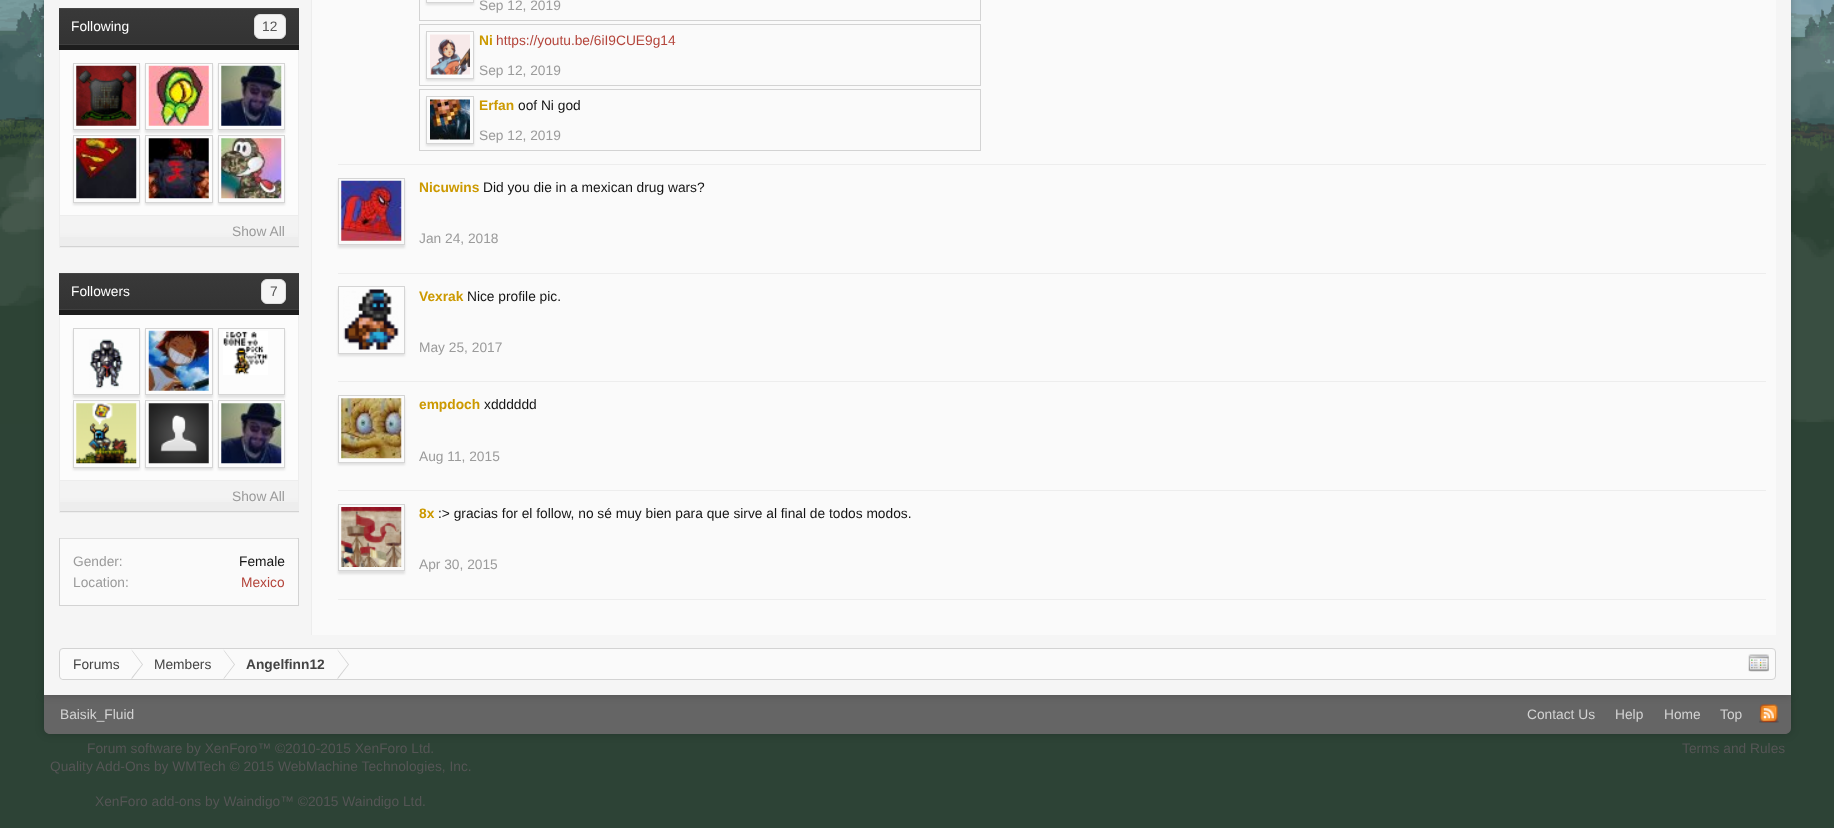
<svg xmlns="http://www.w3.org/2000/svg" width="1834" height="828">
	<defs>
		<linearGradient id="g1" gradientUnits="userSpaceOnUse" x1="179" y1="7.5" x2="179" y2="45"><stop offset="0" stop-color="#393939" /><stop offset="1" stop-color="#333333" /></linearGradient>
		<clipPath id="clip1"><path d="M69 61H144V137H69ZM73 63H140V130H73Z" clip-rule="evenodd" /></clipPath>
		<clipPath id="clip2"><path d="M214 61H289V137H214ZM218 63H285V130H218Z" clip-rule="evenodd" /></clipPath>
		<linearGradient id="g2" gradientUnits="userSpaceOnUse" x1="179" y1="273" x2="179" y2="310"><stop offset="0" stop-color="#393939" /><stop offset="1" stop-color="#333333" /></linearGradient>
		<clipPath id="clip3"><path d="M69 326H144V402H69ZM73 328H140V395H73Z" clip-rule="evenodd" /></clipPath>
		<clipPath id="clip4"><path d="M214 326H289V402H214ZM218 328H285V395H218Z" clip-rule="evenodd" /></clipPath>
		<clipPath id="clip5"><path d="M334 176H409V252H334ZM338 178H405V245H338Z" clip-rule="evenodd" /></clipPath>
		<clipPath id="clip6"><path d="M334 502H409V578H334ZM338 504H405V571H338Z" clip-rule="evenodd" /></clipPath>
		<clipPath id="clip7"><rect x="60" y="649" width="1715" height="30" rx="2.5" /></clipPath>
	</defs>
	<rect width="100%" height="100%" fill="#2D4336" />
	<image x="0" y="0" width="1834" height="424" href="assets/img1.png" />
	<rect x="44" y="695" width="1747" height="39" rx="6" fill="#000000" fill-opacity="0.2" filter="blur(4px)" />
	<path d="M44 695H1791V728C1791 731.5 1788.5 734 1785 734H50C46.5 734 44 731.5 44 728Z" fill="#656565" />
	<image x="1759" y="704" width="20" height="19" href="assets/img24.png" />
	<rect x="44" y="-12" width="1747" height="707" fill="#000000" fill-opacity="0.2" filter="blur(4px)" />
	<rect x="44" y="0" width="1747" height="695" fill="#F5F5F5" />
	<rect x="59" y="9" width="240" height="35" fill="url(#g1)" />
	<rect x="59" y="44" width="240" height="1" fill="#3F3F3F" />
	<rect x="59" y="8" width="240" height="1" fill="#454545" />
	<rect x="59" y="45" width="240" height="5" fill="#1D1D1D" />
	<text x="71" y="31" font-family="Liberation Sans" font-size="13.75" fill="#FFFFFF">Following</text>
	<rect x="254.5" y="14.5" width="31" height="24" rx="5.5" fill="#F5F5F5" stroke="#DEDEDE" />
	<text x="262" y="31" font-family="Liberation Sans" font-size="13.75" fill="#555555">12</text>
	<rect x="60" y="50" width="238" height="165" fill="#FCFCFC" />
	<rect x="298" y="50" width="1" height="166" fill="#EDEDED" />
	<rect x="59" y="215" width="240" height="1" fill="#EDEDED" />
	<rect x="59" y="50" width="1" height="166" fill="#EDEDED" />
	<g clip-path="url(#clip1)">
		<rect x="73" y="65" width="67" height="68" fill="#000000" fill-opacity="0.1" filter="blur(1px)" />
	</g>
	<image x="76" y="65" width="61" height="61" href="assets/img2.png" />
	<rect x="73.5" y="63.5" width="66" height="66" fill="none" stroke="#D5D5D5" />
	<rect x="145" y="65" width="68" height="68" fill="#000000" fill-opacity="0.1" filter="blur(1px)" />
	<rect x="146" y="64" width="66" height="65" fill="#FCFCFC" />
	<image x="148" y="65" width="61" height="61" href="assets/img3.png" />
	<rect x="145.5" y="63.5" width="67" height="66" fill="none" stroke="#D5D5D5" />
	<g clip-path="url(#clip2)">
		<rect x="218" y="65" width="67" height="68" fill="#000000" fill-opacity="0.1" filter="blur(1px)" />
	</g>
	<image x="221" y="65" width="61" height="61" href="assets/img4.png" />
	<rect x="218.5" y="63.5" width="66" height="66" fill="none" stroke="#D5D5D5" />
	<rect x="73" y="138" width="67" height="67" fill="#000000" fill-opacity="0.1" filter="blur(1px)" />
	<rect x="74" y="137" width="65" height="65" fill="#FCFCFC" />
	<image x="76" y="138" width="61" height="61" href="assets/img5.png" />
	<rect x="73.5" y="135.5" width="66" height="67" fill="none" stroke="#D5D5D5" />
	<rect x="145" y="138" width="68" height="67" fill="#000000" fill-opacity="0.1" filter="blur(1px)" />
	<rect x="146" y="137" width="66" height="65" fill="#FCFCFC" />
	<image x="148" y="138" width="61" height="61" href="assets/img6.png" />
	<rect x="145.5" y="135.5" width="67" height="67" fill="none" stroke="#D5D5D5" />
	<rect x="218" y="138" width="67" height="67" fill="#000000" fill-opacity="0.1" filter="blur(1px)" />
	<rect x="219" y="137" width="65" height="65" fill="#FCFCFC" />
	<image x="221" y="138" width="61" height="61" href="assets/img7.png" />
	<rect x="218.5" y="135.5" width="66" height="67" fill="none" stroke="#D5D5D5" />
	<rect x="60" y="216" width="239" height="32" fill="#EDEDED" />
	<image x="60" y="216" width="238" height="21" href="assets/img8.png" />
	<rect x="59" y="246" width="240" height="1" fill="#D3D3D3" />
	<rect x="59" y="216" width="1" height="32" fill="#EDEDED" />
	<text x="232" y="236" font-family="Liberation Sans" font-size="13.75" fill="#9B9B9B">Show All</text>
	<rect x="59" y="274" width="240" height="35" fill="url(#g2)" />
	<rect x="59" y="309" width="240" height="1" fill="#3F3F3F" />
	<rect x="59" y="273" width="240" height="1" fill="#454545" />
	<rect x="59" y="310" width="240" height="5" fill="#1D1D1D" />
	<text x="71" y="296" font-family="Liberation Sans" font-size="13.75" fill="#FFFFFF">Followers</text>
	<rect x="261.5" y="279.5" width="24" height="24" rx="5.5" fill="#F5F5F5" stroke="#DEDEDE" />
	<text x="270" y="296" font-family="Liberation Sans" font-size="13.75" fill="#555555">7</text>
	<rect x="60" y="315" width="238" height="165" fill="#FCFCFC" />
	<rect x="298" y="315" width="1" height="166" fill="#EDEDED" />
	<rect x="59" y="480" width="240" height="1" fill="#EDEDED" />
	<rect x="59" y="315" width="1" height="166" fill="#EDEDED" />
	<g clip-path="url(#clip3)">
		<rect x="73" y="330" width="67" height="68" fill="#000000" fill-opacity="0.1" filter="blur(1px)" />
	</g>
	<image x="89" y="339" width="34" height="50" href="assets/img9.png" />
	<rect x="73.5" y="328.5" width="66" height="66" fill="none" stroke="#D5D5D5" />
	<rect x="145" y="330" width="68" height="68" fill="#000000" fill-opacity="0.1" filter="blur(1px)" />
	<rect x="146" y="329" width="66" height="65" fill="#FCFCFC" />
	<image x="148" y="330" width="61" height="61" href="assets/img10.png" />
	<rect x="145.5" y="328.5" width="67" height="66" fill="none" stroke="#D5D5D5" />
	<g clip-path="url(#clip4)">
		<rect x="218" y="330" width="67" height="68" fill="#000000" fill-opacity="0.1" filter="blur(1px)" />
	</g>
	<image x="223" y="331" width="45" height="44" href="assets/img11.png" />
	<rect x="218.5" y="328.5" width="66" height="66" fill="none" stroke="#D5D5D5" />
	<rect x="73" y="403" width="67" height="67" fill="#000000" fill-opacity="0.1" filter="blur(1px)" />
	<rect x="74" y="402" width="65" height="65" fill="#FCFCFC" />
	<image x="76" y="403" width="61" height="61" href="assets/img12.png" />
	<rect x="73.5" y="400.5" width="66" height="67" fill="none" stroke="#D5D5D5" />
	<rect x="145" y="403" width="68" height="67" fill="#000000" fill-opacity="0.1" filter="blur(1px)" />
	<rect x="146" y="402" width="66" height="65" fill="#FCFCFC" />
	<image x="148" y="403" width="61" height="61" href="assets/img13.png" />
	<rect x="145.5" y="400.5" width="67" height="67" fill="none" stroke="#D5D5D5" />
	<rect x="218" y="403" width="67" height="67" fill="#000000" fill-opacity="0.1" filter="blur(1px)" />
	<rect x="219" y="402" width="65" height="65" fill="#FCFCFC" />
	<image x="221" y="403" width="61" height="61" href="assets/img14.png" />
	<rect x="218.5" y="400.5" width="66" height="67" fill="none" stroke="#D5D5D5" />
	<rect x="60" y="481" width="239" height="32" fill="#EDEDED" />
	<image x="60" y="481" width="238" height="21" href="assets/img15.png" />
	<rect x="59" y="511" width="240" height="1" fill="#D3D3D3" />
	<rect x="59" y="481" width="1" height="32" fill="#EDEDED" />
	<text x="232" y="501" font-family="Liberation Sans" font-size="13.75" fill="#9B9B9B">Show All</text>
	<rect x="59.5" y="538.5" width="239" height="67" fill="none" stroke="#D3D3D3" />
	<rect x="60" y="539" width="238" height="66" fill="#FAFAFA" />
	<image x="60" y="538" width="238" height="1" href="assets/img16.png" />
	<text x="73" y="566" font-family="Liberation Sans" font-size="13.75" fill="#9B9B9B">Gender:</text>
	<text x="239" y="566" font-family="Liberation Sans" font-size="13.75" fill="#141414">Female</text>
	<text x="73" y="587" font-family="Liberation Sans" font-size="13.75" fill="#9B9B9B">Location:</text>
	<text x="241" y="587" font-family="Liberation Sans" font-size="13.75" fill="#B4453B">Mexico</text>
	<rect x="312" y="0" width="1464" height="635" fill="#FAFAFA" />
	<rect x="311" y="0" width="1" height="635" fill="#EDEDED" />
	<rect x="338" y="164" width="1428" height="1" fill="#EDEDED" />
	<rect x="419.5" y="-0.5" width="561" height="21" fill="none" stroke="#D3D3D3" />
	<rect x="426" y="-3" width="48" height="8" fill="#000000" fill-opacity="0.1" filter="blur(1px)" />
	<rect x="426.5" y="-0.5" width="47" height="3" fill="#FCFCFC" stroke="#D5D5D5" />
	<text x="479" y="10" font-family="Liberation Sans" font-size="13.75" fill="#9B9B9B">Sep 12, 2019</text>
	<rect x="419.5" y="24.5" width="561" height="61" fill="none" stroke="#D3D3D3" />
	<rect x="426" y="34" width="48" height="47" fill="#000000" fill-opacity="0.1" filter="blur(1px)" />
	<rect x="426.5" y="31.5" width="47" height="47" fill="#FCFCFC" stroke="#D5D5D5" />
	<image x="430" y="34" width="40" height="41" href="assets/img17.png" />
	<text x="479" y="45" font-family="Liberation Sans" font-size="13.75" font-weight="700" fill="#CC9900">Ni</text>
	<text x="496" y="45" font-family="Liberation Sans" font-size="13.75" fill="#B4453B">https://youtu.be/6iI9CUE9g14</text>
	<text x="479" y="75" font-family="Liberation Sans" font-size="13.75" fill="#9B9B9B">Sep 12, 2019</text>
	<rect x="419.5" y="89.5" width="561" height="61" fill="none" stroke="#D3D3D3" />
	<rect x="426" y="99" width="48" height="47" fill="#000000" fill-opacity="0.1" filter="blur(1px)" />
	<rect x="426.5" y="96.5" width="47" height="47" fill="#FCFCFC" stroke="#D5D5D5" />
	<image x="430" y="99" width="40" height="41" href="assets/img18.png" />
	<text x="479" y="110" font-family="Liberation Sans" font-size="13.75" font-weight="700" fill="#CC9900">Erfan</text>
	<text x="518" y="110" font-family="Liberation Sans" font-size="13.75" fill="#141414">oof Ni god</text>
	<text x="479" y="140" font-family="Liberation Sans" font-size="13.75" fill="#9B9B9B">Sep 12, 2019</text>
	<rect x="338" y="273" width="1428" height="1" fill="#EDEDED" />
	<g clip-path="url(#clip5)">
		<rect x="338" y="180" width="67" height="68" fill="#000000" fill-opacity="0.1" filter="blur(1px)" />
	</g>
	<rect x="338.5" y="178.5" width="66" height="66" fill="none" stroke="#D5D5D5" />
	<image x="341" y="180" width="61" height="61" href="assets/img19.png" />
	<text x="419" y="192" font-family="Liberation Sans" font-size="13.75" font-weight="700" fill="#CC9900">Nicuwins</text>
	<text x="483" y="192" font-family="Liberation Sans" font-size="13.75" fill="#141414">Did you die in a mexican drug wars?</text>
	<text x="419" y="243" font-family="Liberation Sans" font-size="13.75" fill="#9B9B9B">Jan 24, 2018</text>
	<rect x="338" y="381" width="1428" height="1" fill="#EDEDED" />
	<rect x="338" y="289" width="67" height="67" fill="#000000" fill-opacity="0.1" filter="blur(1px)" />
	<rect x="338.5" y="286.5" width="66" height="67" fill="#FCFCFC" stroke="#D5D5D5" />
	<image x="343" y="289" width="56" height="61" href="assets/img20.png" />
	<text x="419" y="301" font-family="Liberation Sans" font-size="13.75" font-weight="700" fill="#CC9900">Vexrak</text>
	<text x="467" y="301" font-family="Liberation Sans" font-size="13.75" fill="#141414">Nice profile pic.</text>
	<text x="419" y="352" font-family="Liberation Sans" font-size="13.75" fill="#9B9B9B">May 25, 2017</text>
	<rect x="338" y="490" width="1428" height="1" fill="#EDEDED" />
	<rect x="338" y="398" width="67" height="67" fill="#000000" fill-opacity="0.1" filter="blur(1px)" />
	<rect x="338.5" y="395.5" width="66" height="67" fill="#FCFCFC" stroke="#D5D5D5" />
	<image x="341" y="398" width="61" height="61" href="assets/img21.png" />
	<text x="419" y="409" font-family="Liberation Sans" font-size="13.75" font-weight="700" fill="#CC9900">empdoch</text>
	<text x="484" y="409" font-family="Liberation Sans" font-size="13.75" fill="#141414">xdddddd</text>
	<text x="419" y="461" font-family="Liberation Sans" font-size="13.75" fill="#9B9B9B">Aug 11, 2015</text>
	<rect x="338" y="599" width="1428" height="1" fill="#EDEDED" />
	<g clip-path="url(#clip6)">
		<rect x="338" y="506" width="67" height="68" fill="#000000" fill-opacity="0.1" filter="blur(1px)" />
	</g>
	<rect x="338.5" y="504.5" width="66" height="66" fill="none" stroke="#D5D5D5" />
	<image x="341" y="507" width="61" height="60" href="assets/img22.png" />
	<text x="419" y="518" font-family="Liberation Sans" font-size="13.75" font-weight="700" fill="#CC9900">8x</text>
	<text x="438" y="518" font-family="Liberation Sans" font-size="13.75" fill="#141414">:&gt; gracias for el follow, no sé muy bien para que sirve al final de todos modos.</text>
	<text x="419" y="569" font-family="Liberation Sans" font-size="13.75" fill="#9B9B9B">Apr 30, 2015</text>
	<rect x="59.5" y="648.5" width="1716" height="31" rx="3.5" fill="#FAFAFA" stroke="#D3D3D3" />
	<g clip-path="url(#clip7)">
		<path d="M66 649H131V680H66C62.5 680 60 677.5 60 674V655C60 651.5 62.5 649 66 649Z" fill="#FAFAFA" />
	</g>
	<text x="73" y="669" font-family="Liberation Sans" font-size="13.75" fill="#444444">Forums</text>
	<path d="M131.5 679.5V649.5L143 664.5Z" fill="#D3D3D3" />
	<path d="M130.5 649L142 664.5L130.5 679H129.5V649Z" fill="#FAFAFA" />
	<text x="154" y="669" font-family="Liberation Sans" font-size="13.75" fill="#444444">Members</text>
	<path d="M223.5 679.5V649.5L235 664.5Z" fill="#D3D3D3" />
	<path d="M222.5 649L234 664.5L223 679H222V649Z" fill="#FAFAFA" />
	<text x="246" y="669" font-family="Liberation Sans" font-size="13.75" font-weight="700" fill="#444444">Angelfinn12</text>
	<path d="M337.5 679.5V649.5L349 664.5Z" fill="#D3D3D3" />
	<path d="M336.5 649L348 664.5L336.5 679H335.5V649Z" fill="#FAFAFA" />
	<image x="1748" y="654" width="21" height="18" href="assets/img23.png" />
	<g font-family="Liberation Sans" font-size="13.75" fill="#D3D3D3">
		<text x="60" y="719">Baisik_Fluid</text>
		<text x="1527" y="719">Contact Us</text>
		<text x="1615" y="719">Help</text>
		<text x="1664" y="719">Home</text>
		<text x="1720" y="719">Top</text>
	</g>
	<g font-family="Liberation Sans" font-size="13.75" fill="#555555">
		<text x="87" y="753">Forum software by XenForo™ ©2010-2015 XenForo Ltd.</text>
		<text x="50" y="771">Quality Add-Ons by WMTech © 2015 WebMachine Technologies, Inc.</text>
		<text x="95" y="806">XenForo add-ons by Waindigo™ ©2015 Waindigo Ltd.</text>
		<text x="1682" y="753">Terms and Rules</text>
	</g>
</svg>
